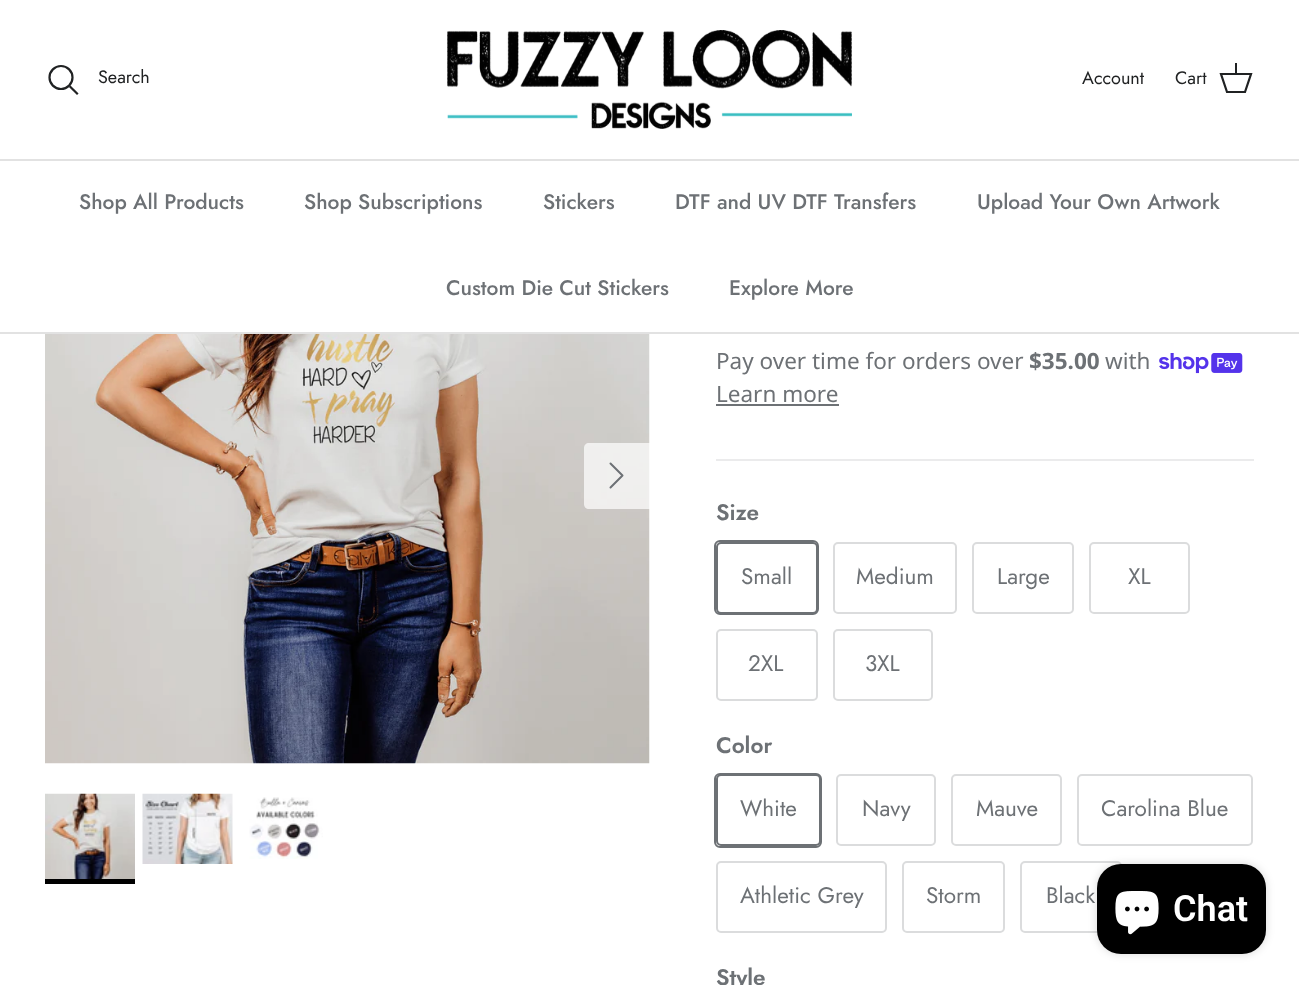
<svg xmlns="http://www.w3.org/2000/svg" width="1299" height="985">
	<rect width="100%" height="100%" fill="#FFFFFF" />
	<rect x="0" y="159" width="1299" height="2" fill="#E2E2E2" />
	<circle cx="61" cy="77.5" r="11.5" fill="none" stroke="#202223" stroke-width="2.2" />
	<text x="98" y="83" font-family="Jost" font-size="18" fill="#202223">Search</text>
	<path d="M70.5 87L77 93.5" fill="none" stroke="#202223" stroke-width="2.2" stroke-linecap="square" />
	<image x="447" y="30" width="405" height="99" href="assets/img1.png" />
	<g font-family="Jost" font-size="18" fill="#202223">
		<text x="1082" y="84">Account</text>
		<text x="1175" y="84">Cart</text>
	</g>
	<path d="M1221 74H1251L1245 92H1227Z" fill="none" stroke="#202223" stroke-width="2.2" />
	<rect x="1235" y="63" width="2" height="12" fill="#202223" />
	<rect x="0" y="332" width="1299" height="2" fill="#E2E2E2" />
	<g font-family="Jost" font-size="21" font-weight="500" fill="#6D7175">
		<text x="79" y="209">Shop All Products</text>
		<text x="304" y="209">Shop Subscriptions</text>
		<text x="543" y="209">Stickers</text>
		<text x="675" y="209">DTF and UV DTF Transfers</text>
		<text x="977" y="209">Upload Your Own Artwork</text>
		<text x="446" y="295">Custom Die Cut Stickers</text>
		<text x="729" y="295">Explore More</text>
	</g>
	<image x="45" y="334" width="605" height="430" href="assets/img2.png" />
	<path d="M589 443H650V509H589C586 509 584 507 584 504V448C584 445 586 443 589 443Z" fill="#FFFFFF" fill-opacity="0.7" />
	<path d="M610.5 487.5L622.5 475.5L610.5 463.5" fill="none" stroke="#6D7175" stroke-width="2" stroke-linecap="round" stroke-linejoin="round" />
	<image x="45" y="793" width="90" height="86" href="assets/img3.png" />
	<rect x="45" y="879" width="90" height="5" fill="#000000" />
	<image x="142" y="793" width="91" height="71" href="assets/img4.png" />
	<image x="249" y="797" width="74" height="62" href="assets/img5.png" />
	<text x="716" y="369" font-family="Noto Sans" font-size="22.5" fill="#6D7175">Pay over time for orders over</text>
	<text x="1029" y="369" font-family="Noto Sans" font-size="22.5" font-weight="700" fill="#6D7175">$35.00</text>
	<text x="1105" y="369" font-family="Noto Sans" font-size="22.5" fill="#6D7175">with</text>
	<image x="1159" y="353" width="84" height="21" href="assets/img6.png" />
	<text x="716" y="402" font-family="Noto Sans" font-size="22.5" fill="#6D7175">Learn more</text>
	<rect x="716" y="404" width="123" height="2" fill="#6D7175" />
	<rect x="716" y="459" width="538" height="2" fill="#EBEBEC" />
	<text x="716" y="520" font-family="Jost" font-size="22.5" font-weight="600" fill="#6D7175">Size</text>
	<rect x="715" y="541" width="103" height="73" rx="5" fill="none" stroke="#6D7175" stroke-width="2" />
	<rect x="717" y="543" width="100" height="70" rx="4" fill="#FFFFFF" stroke="#6D7175" stroke-width="2" />
	<text x="741" y="584" font-family="Jost" font-size="22.5" fill="#6D7175">Small</text>
	<rect x="834" y="543" width="122" height="70" rx="4" fill="none" stroke="#DBDCDD" stroke-width="2" />
	<text x="856" y="584" font-family="Jost" font-size="22.5" fill="#6D7175">Medium</text>
	<rect x="973" y="543" width="100" height="70" rx="4" fill="none" stroke="#DBDCDD" stroke-width="2" />
	<text x="997" y="584" font-family="Jost" font-size="22.5" fill="#6D7175">Large</text>
	<rect x="1090" y="543" width="99" height="70" rx="4" fill="none" stroke="#DBDCDD" stroke-width="2" />
	<text x="1128" y="584" font-family="Jost" font-size="22.5" fill="#6D7175">XL</text>
	<rect x="717" y="630" width="100" height="70" rx="4" fill="none" stroke="#DBDCDD" stroke-width="2" />
	<text x="748" y="671" font-family="Jost" font-size="22.5" fill="#6D7175">2XL</text>
	<rect x="834" y="630" width="98" height="70" rx="4" fill="none" stroke="#DBDCDD" stroke-width="2" />
	<text x="865" y="671" font-family="Jost" font-size="22.5" fill="#6D7175">3XL</text>
	<text x="716" y="753" font-family="Jost" font-size="22.5" font-weight="600" fill="#6D7175">Color</text>
	<rect x="715" y="774" width="106" height="73" rx="5" fill="none" stroke="#6D7175" stroke-width="2" />
	<rect x="717" y="775" width="103" height="70" rx="4" fill="#FFFFFF" stroke="#6D7175" stroke-width="2" />
	<text x="740" y="816" font-family="Jost" font-size="22.5" fill="#6D7175">White</text>
	<rect x="837" y="775" width="98" height="70" rx="4" fill="none" stroke="#DBDCDD" stroke-width="2" />
	<text x="862" y="816" font-family="Jost" font-size="22.5" fill="#6D7175">Navy</text>
	<rect x="952" y="775" width="109" height="70" rx="4" fill="none" stroke="#DBDCDD" stroke-width="2" />
	<text x="976" y="816" font-family="Jost" font-size="22.5" fill="#6D7175">Mauve</text>
	<rect x="1078" y="775" width="174" height="70" rx="4" fill="none" stroke="#DBDCDD" stroke-width="2" />
	<text x="1101" y="816" font-family="Jost" font-size="22.5" fill="#6D7175">Carolina Blue</text>
	<rect x="717" y="862" width="169" height="70" rx="4" fill="none" stroke="#DBDCDD" stroke-width="2" />
	<text x="740" y="903" font-family="Jost" font-size="22.5" fill="#6D7175">Athletic Grey</text>
	<rect x="903" y="862" width="101" height="70" rx="4" fill="none" stroke="#DBDCDD" stroke-width="2" />
	<text x="926" y="903" font-family="Jost" font-size="22.5" fill="#6D7175">Storm</text>
	<rect x="1021" y="862" width="100" height="70" rx="4" fill="none" stroke="#DBDCDD" stroke-width="2" />
	<text x="1046" y="903" font-family="Jost" font-size="22.5" fill="#6D7175">Black</text>
	<text x="716" y="985" font-family="Jost" font-size="22.5" font-weight="600" fill="#6D7175">Style</text>
	<rect x="1097" y="864" width="169" height="90" rx="24" fill="#000000" fill-opacity="0.15" filter="blur(4px)" />
	<rect x="1097" y="864" width="169" height="90" rx="24" fill="#000000" />
	<image x="1115" y="891" width="44" height="44" href="assets/img7.png" />
	<text x="1173" y="921" font-family="Roboto" font-size="36" font-weight="600" fill="#FFFFFF">Chat</text>
</svg>
